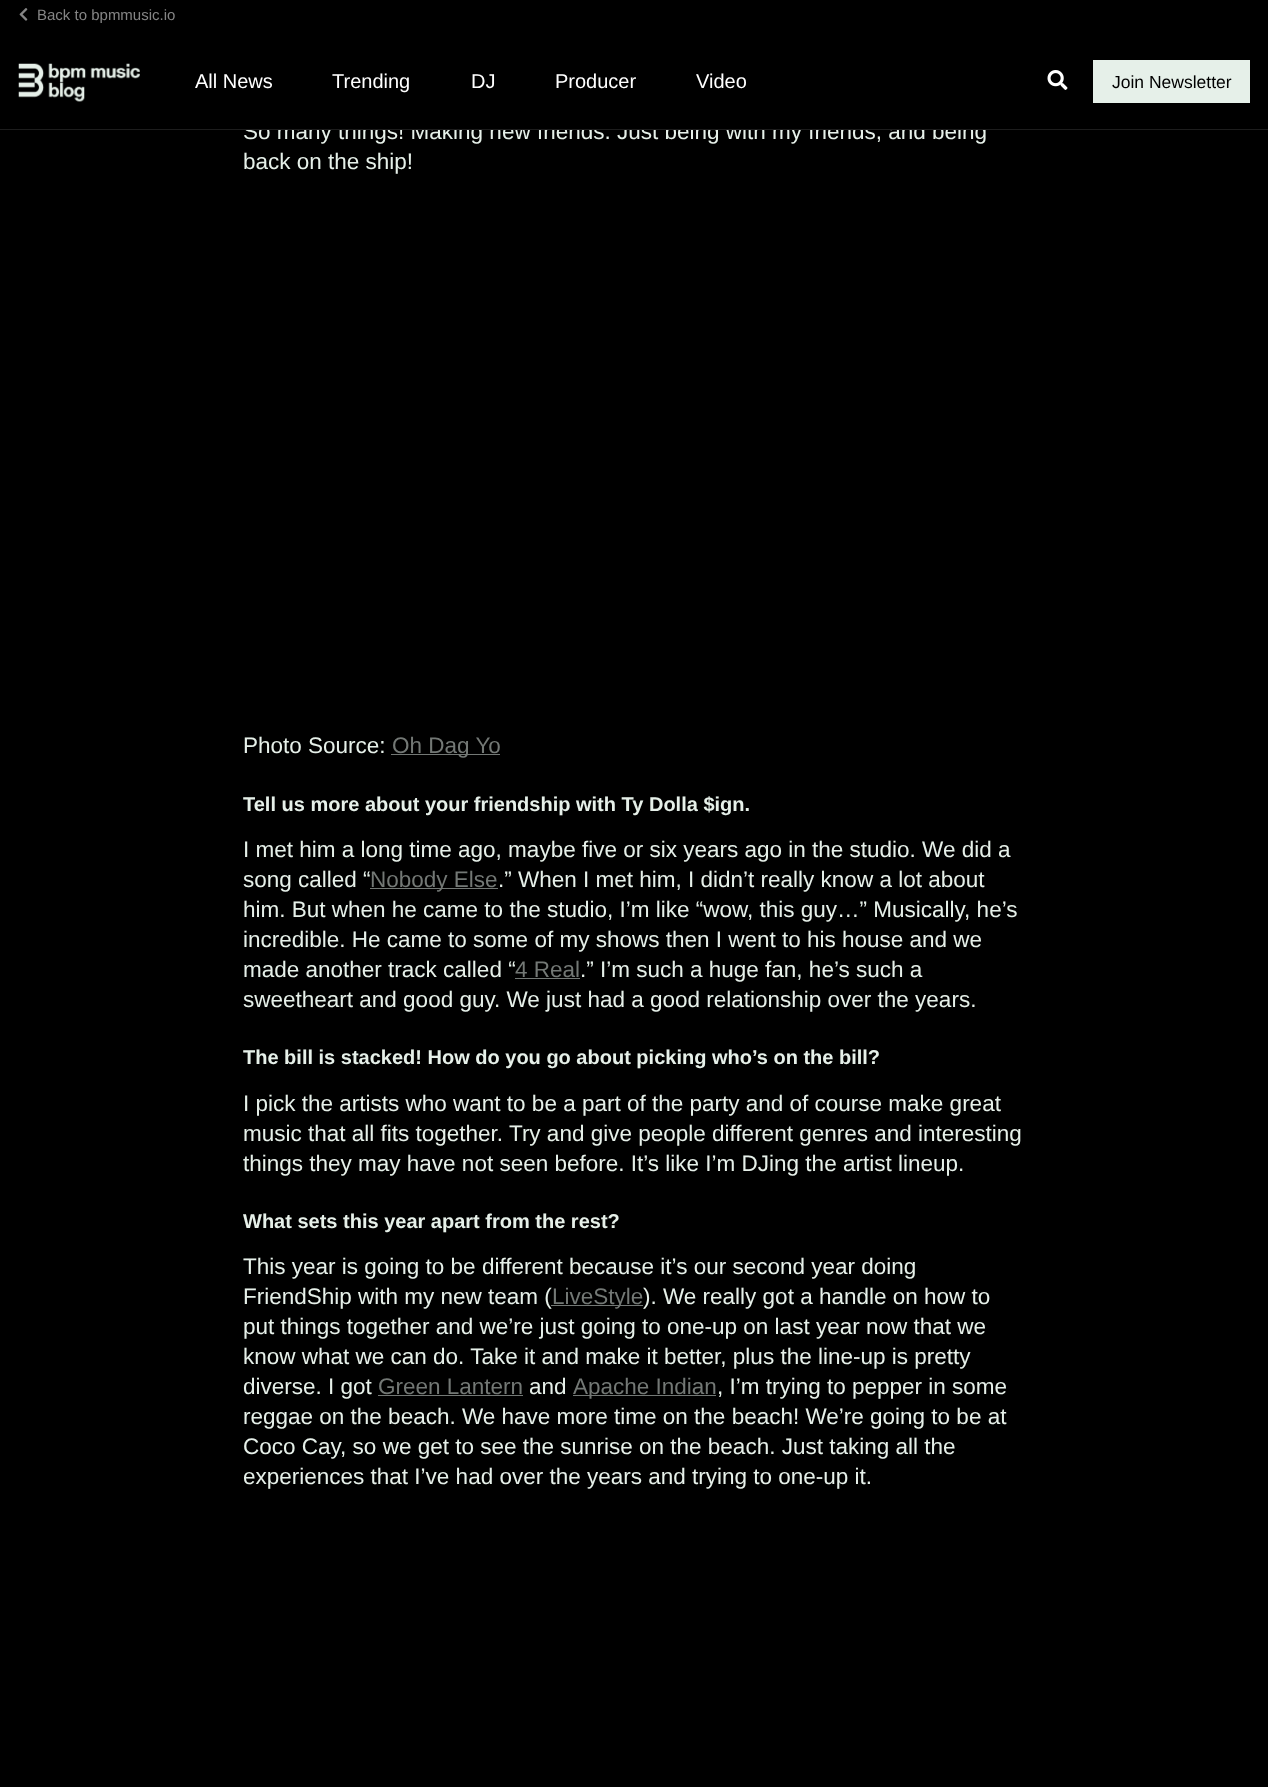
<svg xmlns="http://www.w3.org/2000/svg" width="1268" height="1787">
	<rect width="100%" height="100%" fill="#000000" />
	<image x="19" y="8" width="9" height="13" href="assets/img1.png" />
	<text x="37" y="20" font-family="Liberation Sans" font-size="15" fill="#858585">Back to bpmmusic.io</text>
	<text x="243" y="139" font-family="Liberation Sans" font-size="22.5" fill="#E6F0E9">So many things! Making new friends. Just being with my friends, and being</text>
	<rect x="244" y="122" width="742" height="7" fill="#000000" />
	<rect x="0" y="129" width="1268" height="1" fill="#1D1D1D" />
	<image x="18" y="63" width="122" height="39" href="assets/img2.png" />
	<g font-family="Liberation Sans" font-size="20" fill="#FFFFFF">
		<text x="195" y="88">All News</text>
		<text x="332" y="88">Trending</text>
		<text x="471" y="88">DJ</text>
		<text x="555" y="88">Producer</text>
		<text x="696" y="88">Video</text>
	</g>
	<image x="1047" y="70" width="21" height="20" href="assets/img3.png" />
	<rect x="1093" y="60" width="157" height="43" fill="#E6F0E9" />
	<text x="1112" y="88" font-family="Liberation Sans" font-size="17.5" fill="#000000">Join Newsletter</text>
	<g font-family="Liberation Sans" font-size="22.5" fill="#E6F0E9">
		<text x="243" y="169">back on the ship!</text>
		<text x="243" y="753">Photo Source:</text>
	</g>
	<rect x="391" y="754" width="109" height="1" fill="#737875" />
	<text x="392" y="753" font-family="Liberation Sans" font-size="22.5" fill="#737875">Oh Dag Yo</text>
	<text x="243" y="811" font-family="Liberation Sans" font-size="20" font-weight="700" fill="#E6F0E9">Tell us more about your friendship with Ty Dolla $ign.</text>
	<g font-family="Liberation Sans" font-size="22.5" fill="#E6F0E9">
		<text x="243" y="857">I met him a long time ago, maybe five or six years ago in the studio. We did a</text>
		<text x="243" y="887">song called “</text>
	</g>
	<rect x="370" y="888" width="128" height="1" fill="#737875" />
	<text x="370" y="887" font-family="Liberation Sans" font-size="22.5" fill="#737875">Nobody Else</text>
	<g font-family="Liberation Sans" font-size="22.5" fill="#E6F0E9">
		<text x="498" y="887">.” When I met him, I didn’t really know a lot about</text>
		<text x="243" y="917">him. But when he came to the studio, I’m like “wow, this guy…” Musically, he’s</text>
		<text x="243" y="947">incredible. He came to some of my shows then I went to his house and we</text>
		<text x="243" y="977">made another track called “</text>
	</g>
	<text x="515" y="977" font-family="Liberation Sans" font-size="22.5" fill="#737875">4 Real</text>
	<text x="580" y="977" font-family="Liberation Sans" font-size="22.5" fill="#E6F0E9">.” I’m such a huge fan, he’s such a</text>
	<rect x="515" y="978" width="65" height="1" fill="#737875" />
	<text x="243" y="1007" font-family="Liberation Sans" font-size="22.5" fill="#E6F0E9">sweetheart and good guy. We just had a good relationship over the years.</text>
	<text x="243" y="1064" font-family="Liberation Sans" font-size="20" font-weight="700" fill="#E6F0E9">The bill is stacked! How do you go about picking who’s on the bill?</text>
	<g font-family="Liberation Sans" font-size="22.5" fill="#E6F0E9">
		<text x="243" y="1111">I pick the artists who want to be a part of the party and of course make great</text>
		<text x="243" y="1141">music that all fits together. Try and give people different genres and interesting</text>
		<text x="243" y="1171">things they may have not seen before. It’s like I’m DJing the artist lineup.</text>
	</g>
	<text x="243" y="1228" font-family="Liberation Sans" font-size="20" font-weight="700" fill="#E6F0E9">What sets this year apart from the rest?</text>
	<g font-family="Liberation Sans" font-size="22.5" fill="#E6F0E9">
		<text x="243" y="1274">This year is going to be different because it’s our second year doing</text>
		<text x="243" y="1304">FriendShip with my new team (</text>
	</g>
	<rect x="551" y="1305" width="92" height="1" fill="#737875" />
	<text x="552" y="1304" font-family="Liberation Sans" font-size="22.5" fill="#737875">LiveStyle</text>
	<g font-family="Liberation Sans" font-size="22.5" fill="#E6F0E9">
		<text x="643" y="1304">). We really got a handle on how to</text>
		<text x="243" y="1334">put things together and we’re just going to one-up on last year now that we</text>
		<text x="243" y="1364">know what we can do. Take it and make it better, plus the line-up is pretty</text>
		<text x="243" y="1394">diverse. I got</text>
	</g>
	<text x="378" y="1394" font-family="Liberation Sans" font-size="22.5" fill="#737875">Green Lantern</text>
	<rect x="378" y="1395" width="145" height="1" fill="#737875" />
	<text x="529" y="1394" font-family="Liberation Sans" font-size="22.5" fill="#E6F0E9">and</text>
	<rect x="573" y="1395" width="143" height="1" fill="#737875" />
	<text x="573" y="1394" font-family="Liberation Sans" font-size="22.5" fill="#737875">Apache Indian</text>
	<g font-family="Liberation Sans" font-size="22.5" fill="#E6F0E9">
		<text x="717" y="1394">, I’m trying to pepper in some</text>
		<text x="243" y="1424">reggae on the beach. We have more time on the beach! We’re going to be at</text>
		<text x="243" y="1454">Coco Cay, so we get to see the sunrise on the beach. Just taking all the</text>
		<text x="243" y="1484">experiences that I’ve had over the years and trying to one-up it.</text>
	</g>
</svg>
